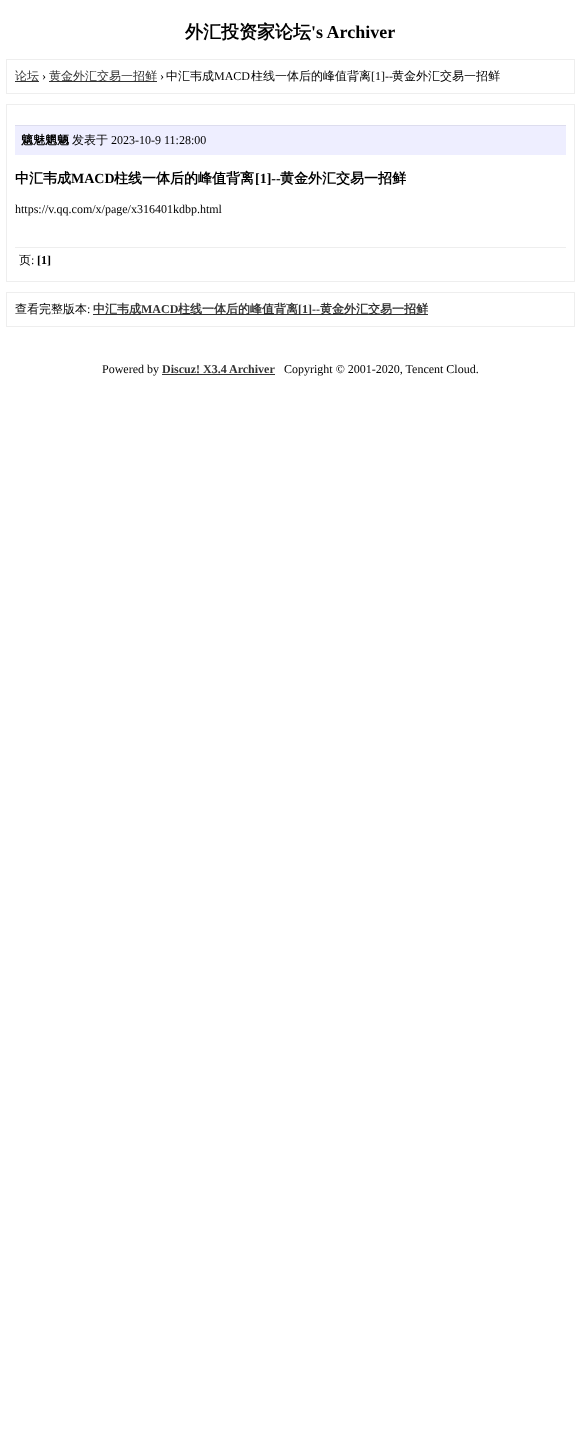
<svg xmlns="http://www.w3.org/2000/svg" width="580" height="1436">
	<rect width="100%" height="100%" fill="#FFFFFF" />
	<text x="185" y="38" font-family="WenQuanYi Zen Hei" font-size="18" font-weight="700" fill="#000000">外汇投资家论坛</text>
	<text x="311" y="38" font-family="Liberation Serif" font-size="18" font-weight="700" fill="#000000">'s Archiver</text>
	<rect x="6.5" y="59.5" width="568" height="34" fill="none" stroke="#EEEEEE" />
	<rect x="15" y="81" width="24" height="1" fill="#333333" />
	<text x="15" y="80" font-family="WenQuanYi Zen Hei" font-size="12" font-weight="500" fill="#333333">论坛</text>
	<text x="42" y="80" font-family="Liberation Serif" font-size="12" fill="#000000">›</text>
	<rect x="49" y="81" width="108" height="1" fill="#333333" />
	<text x="49" y="80" font-family="WenQuanYi Zen Hei" font-size="12" font-weight="500" fill="#333333">黄金外汇交易一招鲜</text>
	<text x="160" y="80" font-family="Liberation Serif" font-size="12" fill="#000000">›</text>
	<text x="166" y="80" font-family="WenQuanYi Zen Hei" font-size="12" font-weight="500" fill="#000000">中汇韦成</text>
	<text x="214" y="80" font-family="Liberation Serif" font-size="12" fill="#000000">MACD</text>
	<text x="251" y="80" font-family="WenQuanYi Zen Hei" font-size="12" font-weight="500" fill="#000000">柱线一体后的峰值背离</text>
	<text x="371" y="80" font-family="Liberation Serif" font-size="12" fill="#000000">[1]--</text>
	<text x="392" y="80" font-family="WenQuanYi Zen Hei" font-size="12" font-weight="500" fill="#000000">黄金外汇交易一招鲜</text>
	<rect x="6.5" y="104.5" width="568" height="177" fill="none" stroke="#EEEEEE" />
	<rect x="15" y="126" width="551" height="29" fill="#EEEEFF" />
	<rect x="15" y="125" width="551" height="1" fill="#DDDDEE" />
	<text x="21" y="144" font-family="WenQuanYi Zen Hei" font-size="12" font-weight="700" fill="#000000">魑魅魍魉</text>
	<text x="72" y="144" font-family="WenQuanYi Zen Hei" font-size="12" font-weight="500" fill="#000000">发表于</text>
	<text x="111" y="144" font-family="Liberation Serif" font-size="12" fill="#000000">2023-10-9 11:28:00</text>
	<text x="15" y="183" font-family="WenQuanYi Zen Hei" font-size="14" font-weight="700" fill="#000000">中汇韦成</text>
	<text x="71" y="183" font-family="Liberation Serif" font-size="14" font-weight="700" fill="#000000">MACD</text>
	<text x="114" y="183" font-family="WenQuanYi Zen Hei" font-size="14" font-weight="700" fill="#000000">柱线一体后的峰值背离</text>
	<text x="255" y="183" font-family="Liberation Serif" font-size="14" font-weight="700" fill="#000000">[1]--</text>
	<text x="280" y="183" font-family="WenQuanYi Zen Hei" font-size="14" font-weight="700" fill="#000000">黄金外汇交易一招鲜</text>
	<text x="15" y="213" font-family="Liberation Serif" font-size="12" fill="#000000">https://v.qq.com/x/page/x316401kdbp.html</text>
	<rect x="15" y="247" width="551" height="1" fill="#EEEEEE" />
	<text x="19" y="264" font-family="WenQuanYi Zen Hei" font-size="12" font-weight="500" fill="#000000">页</text>
	<text x="31" y="264" font-family="Liberation Serif" font-size="12" fill="#000000">:</text>
	<text x="37" y="264" font-family="Liberation Serif" font-size="12" font-weight="700" fill="#000000">[1]</text>
	<rect x="6.5" y="292.5" width="568" height="34" fill="none" stroke="#EEEEEE" />
	<text x="15" y="313" font-family="WenQuanYi Zen Hei" font-size="12" font-weight="500" fill="#000000">查看完整版本</text>
	<text x="87" y="313" font-family="Liberation Serif" font-size="12" fill="#000000">:</text>
	<rect x="93" y="314" width="335" height="1" fill="#333333" />
	<text x="93" y="313" font-family="WenQuanYi Zen Hei" font-size="12" font-weight="700" fill="#333333">中汇韦成</text>
	<text x="141" y="313" font-family="Liberation Serif" font-size="12" font-weight="700" fill="#333333">MACD</text>
	<text x="178" y="313" font-family="WenQuanYi Zen Hei" font-size="12" font-weight="700" fill="#333333">柱线一体后的峰值背离</text>
	<text x="298" y="313" font-family="Liberation Serif" font-size="12" font-weight="700" fill="#333333">[1]--</text>
	<text x="320" y="313" font-family="WenQuanYi Zen Hei" font-size="12" font-weight="700" fill="#333333">黄金外汇交易一招鲜</text>
	<text x="102" y="373" font-family="Liberation Serif" font-size="12" fill="#000000">Powered by</text>
	<text x="162" y="373" font-family="Liberation Serif" font-size="12" font-weight="700" fill="#333333">Discuz! X3.4 Archiver</text>
	<rect x="162" y="374" width="113" height="1" fill="#333333" />
	<text x="284" y="373" font-family="Liberation Serif" font-size="12" fill="#000000">Copyright © 2001-2020, Tencent Cloud.</text>
</svg>
